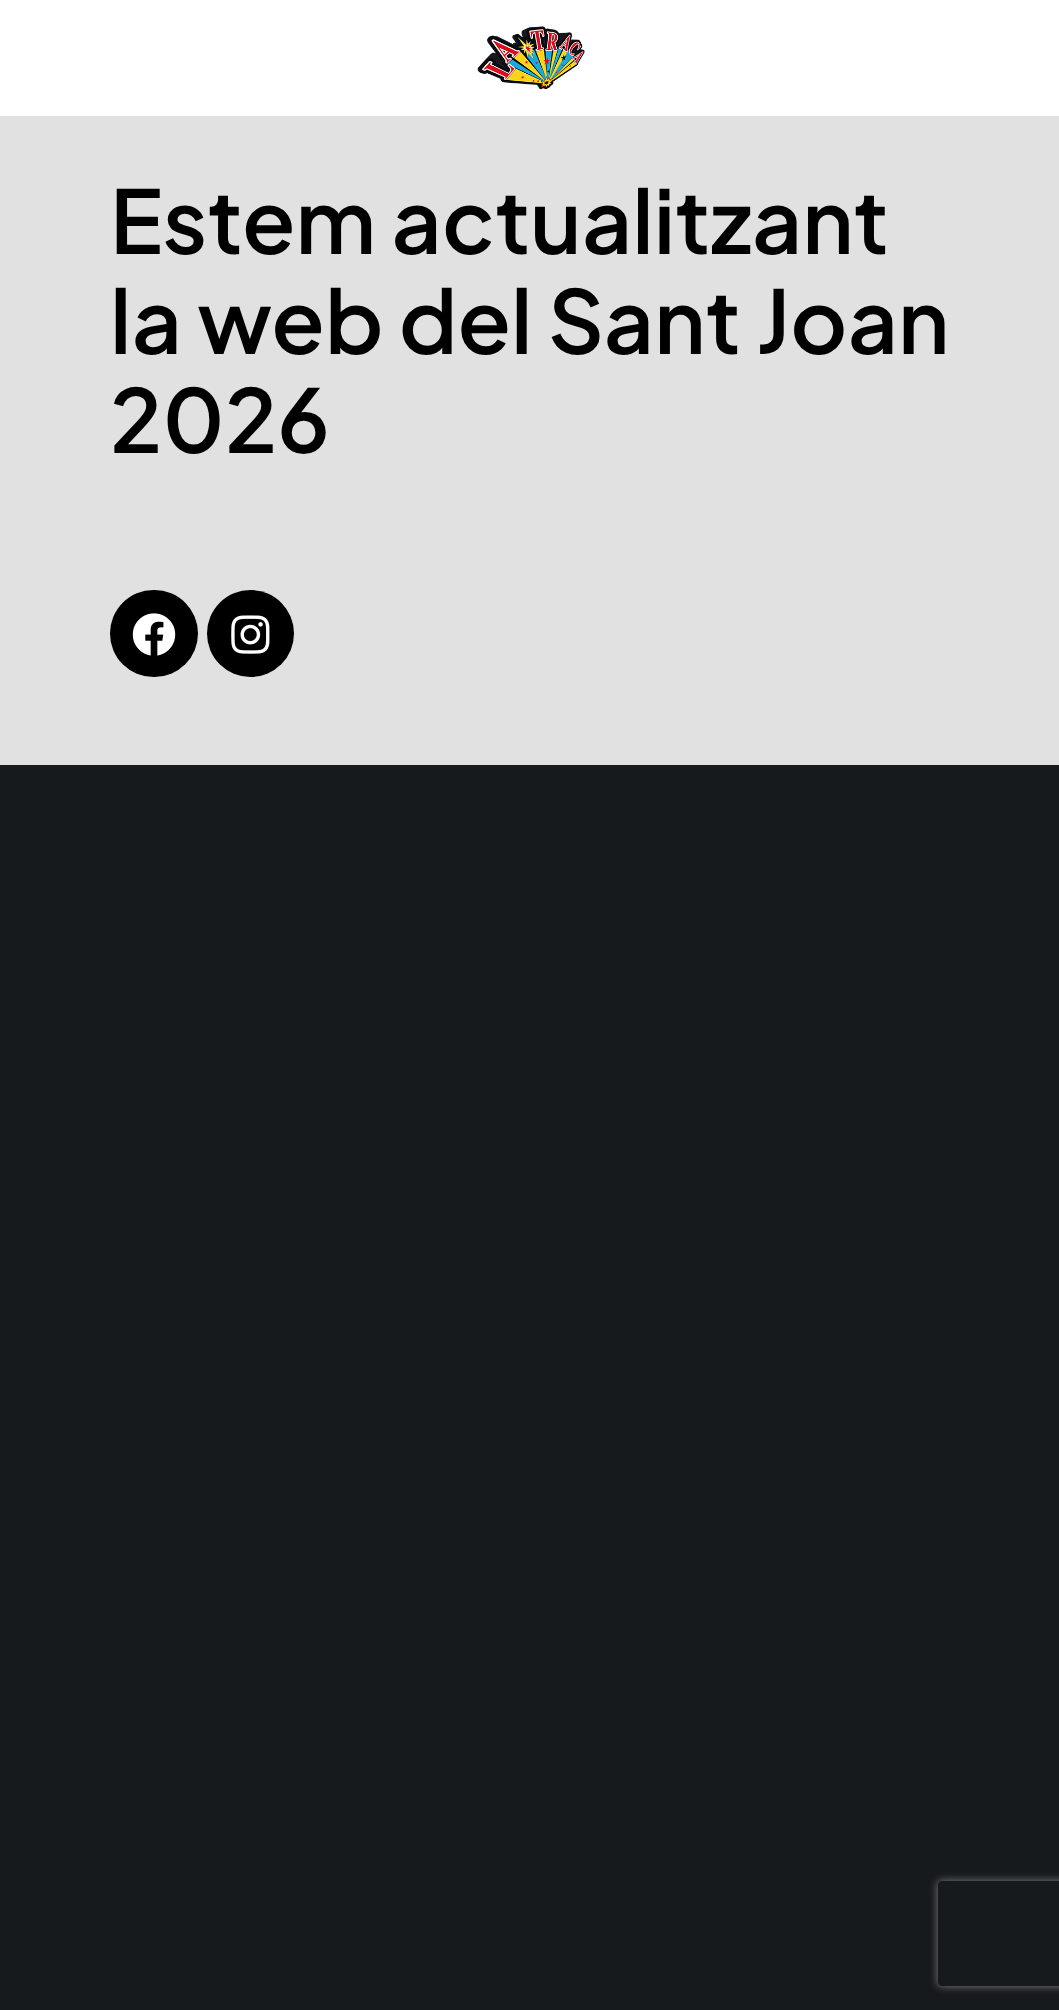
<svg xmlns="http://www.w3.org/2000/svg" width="1059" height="2010">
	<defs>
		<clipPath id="clip1"><path d="M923 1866H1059V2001H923ZM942 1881H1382C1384 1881 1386 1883 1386 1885V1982C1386 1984 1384 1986 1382 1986H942C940 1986 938 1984 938 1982V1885C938 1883 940 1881 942 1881Z" clip-rule="evenodd" /></clipPath>
	</defs>
	<rect width="100%" height="100%" fill="#171A1D" />
	<rect x="0" y="0" width="1059" height="116" fill="#FFFFFF" />
	<image x="477" y="26" width="108" height="64" href="assets/img1.png" />
	<rect x="0" y="116" width="1059" height="649" fill="#E1E1E1" />
	<g font-family="Plus Jakarta Sans" font-size="87.5" font-weight="600" fill="#000000">
		<text x="110" y="254">Estem actualitzant</text>
		<text x="110" y="354">la web del Sant Joan</text>
		<text x="110" y="453">2026</text>
	</g>
	<rect x="110" y="590" width="88" height="87" rx="43.5" fill="#000000" />
	<image x="132" y="613" width="44" height="43" href="assets/img2.png" />
	<circle cx="250.5" cy="633.5" r="43.5" fill="#000000" />
	<image x="231" y="615" width="39" height="39" href="assets/img3.png" />
	<g clip-path="url(#clip1)">
		<rect x="938" y="1881" width="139" height="105" rx="4" fill="#808080" filter="blur(4.5px)" />
	</g>
</svg>
